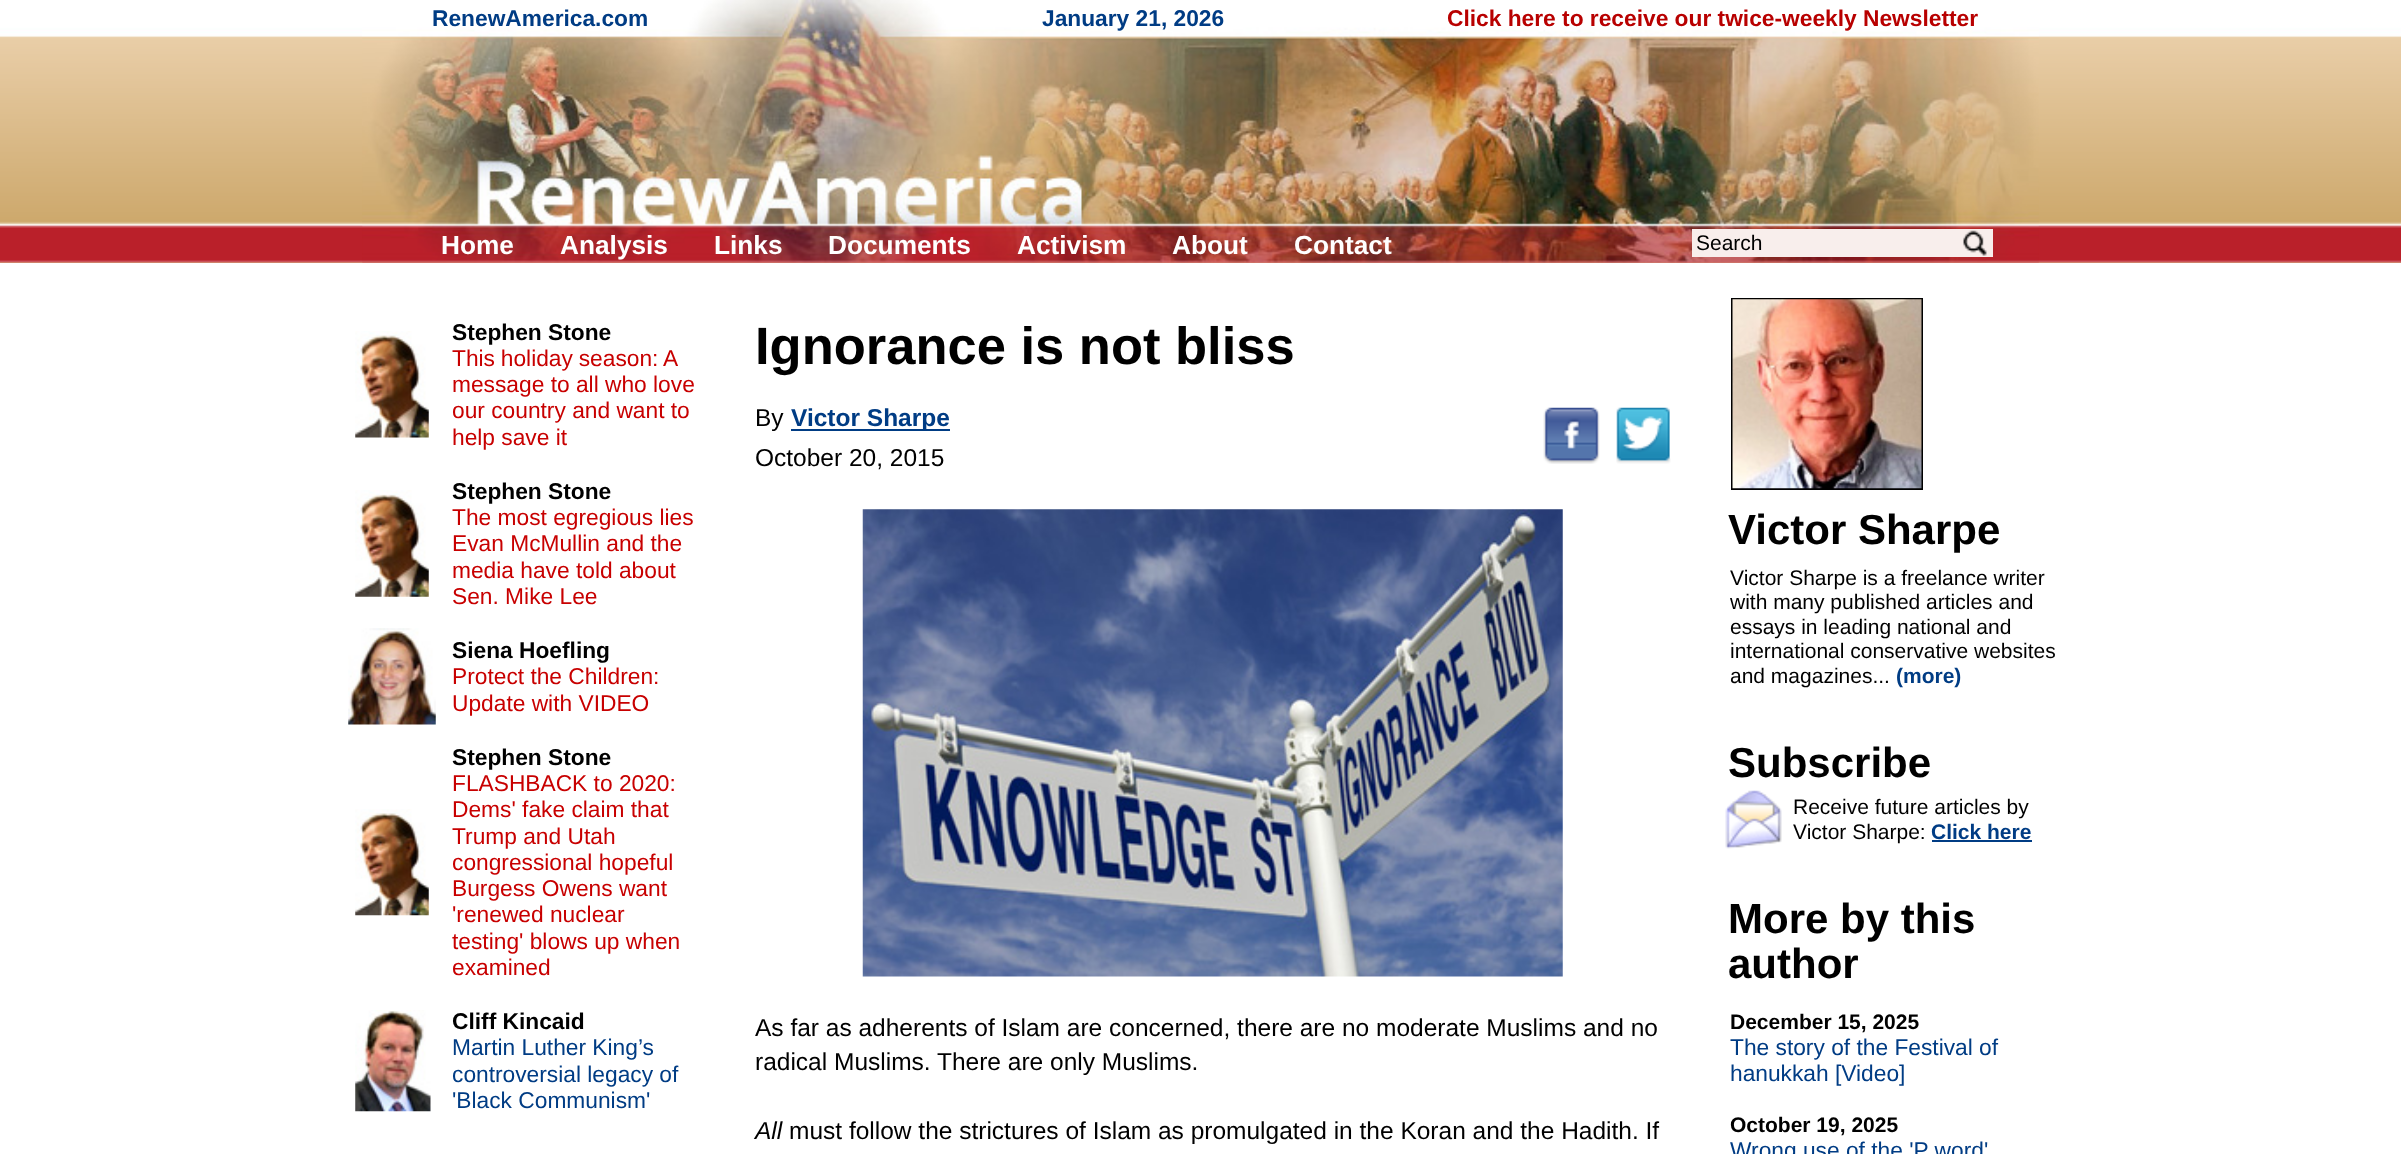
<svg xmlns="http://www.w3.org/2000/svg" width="2401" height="1154">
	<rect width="100%" height="100%" fill="#FFFFFF" />
	<rect x="0" y="262" width="2401" height="1" fill="#D1AD74" />
	<image x="0" y="0" width="2401" height="263" href="assets/img1.png" />
	<image x="362" y="0" width="1677" height="263" href="assets/img2.png" />
	<g font-family="Liberation Sans" font-size="22.75" font-weight="700" fill="#003C84">
		<text x="432" y="26">RenewAmerica.com</text>
		<text x="1042" y="26">January 21, 2026</text>
	</g>
	<text x="1447" y="26" font-family="Liberation Sans" font-size="22.75" font-weight="700" fill="#B80000">Click here to receive our twice-weekly Newsletter</text>
	<g font-family="Liberation Sans" font-size="26.25" font-weight="700" fill="#FFFFFF">
		<text x="441" y="254">Home</text>
		<text x="560" y="254">Analysis</text>
		<text x="714" y="254">Links</text>
		<text x="828" y="254">Documents</text>
		<text x="1017" y="254">Activism</text>
		<text x="1172" y="254">About</text>
		<text x="1294" y="254">Contact</text>
	</g>
	<rect x="1692" y="229" width="301" height="28" fill="#F8EEEC" />
	<text x="1696" y="250" font-family="Liberation Sans" font-size="21" fill="#000000">Search</text>
	<image x="1963" y="230" width="24" height="26" href="assets/img3.png" />
	<image x="355" y="331" width="74" height="107" href="assets/img4.png" />
	<text x="452" y="340" font-family="Liberation Sans" font-size="22.75" font-weight="700" fill="#000000">Stephen Stone</text>
	<g font-family="Liberation Sans" font-size="22.75" fill="#C80000">
		<text x="452" y="366" word-spacing="-0.5">This holiday season: A</text>
		<text x="452" y="392">message to all who love</text>
		<text x="452" y="418">our country and want to</text>
		<text x="452" y="445">help save it</text>
	</g>
	<image x="355" y="490" width="74" height="107" href="assets/img5.png" />
	<text x="452" y="499" font-family="Liberation Sans" font-size="22.75" font-weight="700" fill="#000000">Stephen Stone</text>
	<g font-family="Liberation Sans" font-size="22.75" fill="#C80000">
		<text x="452" y="525">The most egregious lies</text>
		<text x="452" y="551">Evan McMullin and the</text>
		<text x="452" y="578">media have told about</text>
		<text x="452" y="604">Sen. Mike Lee</text>
	</g>
	<image x="348" y="628" width="88" height="97" href="assets/img6.png" />
	<text x="452" y="658" font-family="Liberation Sans" font-size="22.75" font-weight="700" fill="#000000">Siena Hoefling</text>
	<g font-family="Liberation Sans" font-size="22.75" fill="#C80000">
		<text x="452" y="684">Protect the Children:</text>
		<text x="452" y="711">Update with VIDEO</text>
	</g>
	<image x="355" y="809" width="74" height="107" href="assets/img7.png" />
	<text x="452" y="765" font-family="Liberation Sans" font-size="22.75" font-weight="700" fill="#000000">Stephen Stone</text>
	<g font-family="Liberation Sans" font-size="22.75" fill="#C80000">
		<text x="452" y="791">FLASHBACK to 2020:</text>
		<text x="452" y="817">Dems' fake claim that</text>
		<text x="452" y="844">Trump and Utah</text>
		<text x="452" y="870">congressional hopeful</text>
		<text x="452" y="896">Burgess Owens want</text>
		<text x="452" y="922">'renewed nuclear</text>
		<text x="452" y="949">testing' blows up when</text>
		<text x="452" y="975">examined</text>
	</g>
	<image x="355" y="1010" width="76" height="102" href="assets/img8.png" />
	<text x="452" y="1029" font-family="Liberation Sans" font-size="22.75" font-weight="700" fill="#000000">Cliff Kincaid</text>
	<g font-family="Liberation Sans" font-size="22.75" fill="#003C84">
		<text x="452" y="1055">Martin Luther King’s</text>
		<text x="452" y="1082">controversial legacy of</text>
		<text x="452" y="1108">'Black Communism'</text>
	</g>
	<text x="755" y="364" font-family="Liberation Sans" font-size="52.5" font-weight="700" fill="#000000">Ignorance is not bliss</text>
	<image x="1543" y="407" width="57" height="57" href="assets/img9.png" />
	<image x="1616" y="407" width="55" height="57" href="assets/img10.png" />
	<text x="755" y="426" font-family="Liberation Sans" font-size="24.5" fill="#000000">By</text>
	<rect x="791" y="429" width="159" height="2" fill="#003C84" />
	<text x="791" y="426" font-family="Liberation Sans" font-size="24.5" font-weight="700" fill="#003C84">Victor Sharpe</text>
	<text x="755" y="466" font-family="Liberation Sans" font-size="24.5" fill="#000000">October 20, 2015</text>
	<image x="862" y="509" width="701" height="468" href="assets/img11.png" />
	<g font-family="Liberation Sans" font-size="24.5" fill="#000000">
		<text x="755" y="1036">As far as adherents of Islam are concerned, there are no moderate Muslims and no</text>
		<text x="755" y="1070">radical Muslims. There are only Muslims.</text>
	</g>
	<text x="755" y="1139" font-family="Liberation Sans" font-size="24.5" font-style="italic" fill="#000000">All</text>
	<text x="789" y="1139" font-family="Liberation Sans" font-size="24.5" fill="#000000">must follow the strictures of Islam as promulgated in the Koran and the Hadith. If</text>
	<rect x="1732" y="299" width="190" height="190" fill="none" stroke="#000000" stroke-width="2" />
	<image x="1732" y="299" width="190" height="190" href="assets/img12.png" />
	<text x="1728" y="544" font-family="Liberation Sans" font-size="42" font-weight="700" fill="#000000">Victor Sharpe</text>
	<g font-family="Liberation Sans" font-size="21" fill="#000000">
		<text x="1730" y="585">Victor Sharpe is a freelance writer</text>
		<text x="1730" y="609">with many published articles and</text>
		<text x="1730" y="634">essays in leading national and</text>
		<text x="1730" y="658">international conservative websites</text>
		<text x="1730" y="683">and magazines...</text>
	</g>
	<text x="1896" y="683" font-family="Liberation Sans" font-size="21" font-weight="700" fill="#003C84">(more)</text>
	<text x="1728" y="777" font-family="Liberation Sans" font-size="42" font-weight="700" fill="#000000">Subscribe</text>
	<image x="1725" y="790" width="57" height="59" href="assets/img13.png" />
	<g font-family="Liberation Sans" font-size="21" fill="#000000">
		<text x="1793" y="814">Receive future articles by</text>
		<text x="1793" y="839">Victor Sharpe:</text>
	</g>
	<text x="1931" y="839" font-family="Liberation Sans" font-size="21" font-weight="700" fill="#003C84">Click here</text>
	<rect x="1932" y="840" width="100" height="2" fill="#003C84" />
	<g font-family="Liberation Sans" font-size="42" font-weight="700" fill="#000000">
		<text x="1728" y="933">More by this</text>
		<text x="1728" y="978">author</text>
	</g>
	<text x="1730" y="1029" font-family="Liberation Sans" font-size="21" font-weight="700" fill="#000000">December 15, 2025</text>
	<g font-family="Liberation Sans" font-size="22.75" fill="#003C84">
		<text x="1730" y="1055">The story of the Festival of</text>
		<text x="1730" y="1081">hanukkah [Video]</text>
	</g>
	<text x="1730" y="1132" font-family="Liberation Sans" font-size="21" font-weight="700" fill="#000000">October 19, 2025</text>
	<text x="1730" y="1158" font-family="Liberation Sans" font-size="22.75" fill="#003C84">Wrong use of the 'P word'</text>
</svg>
